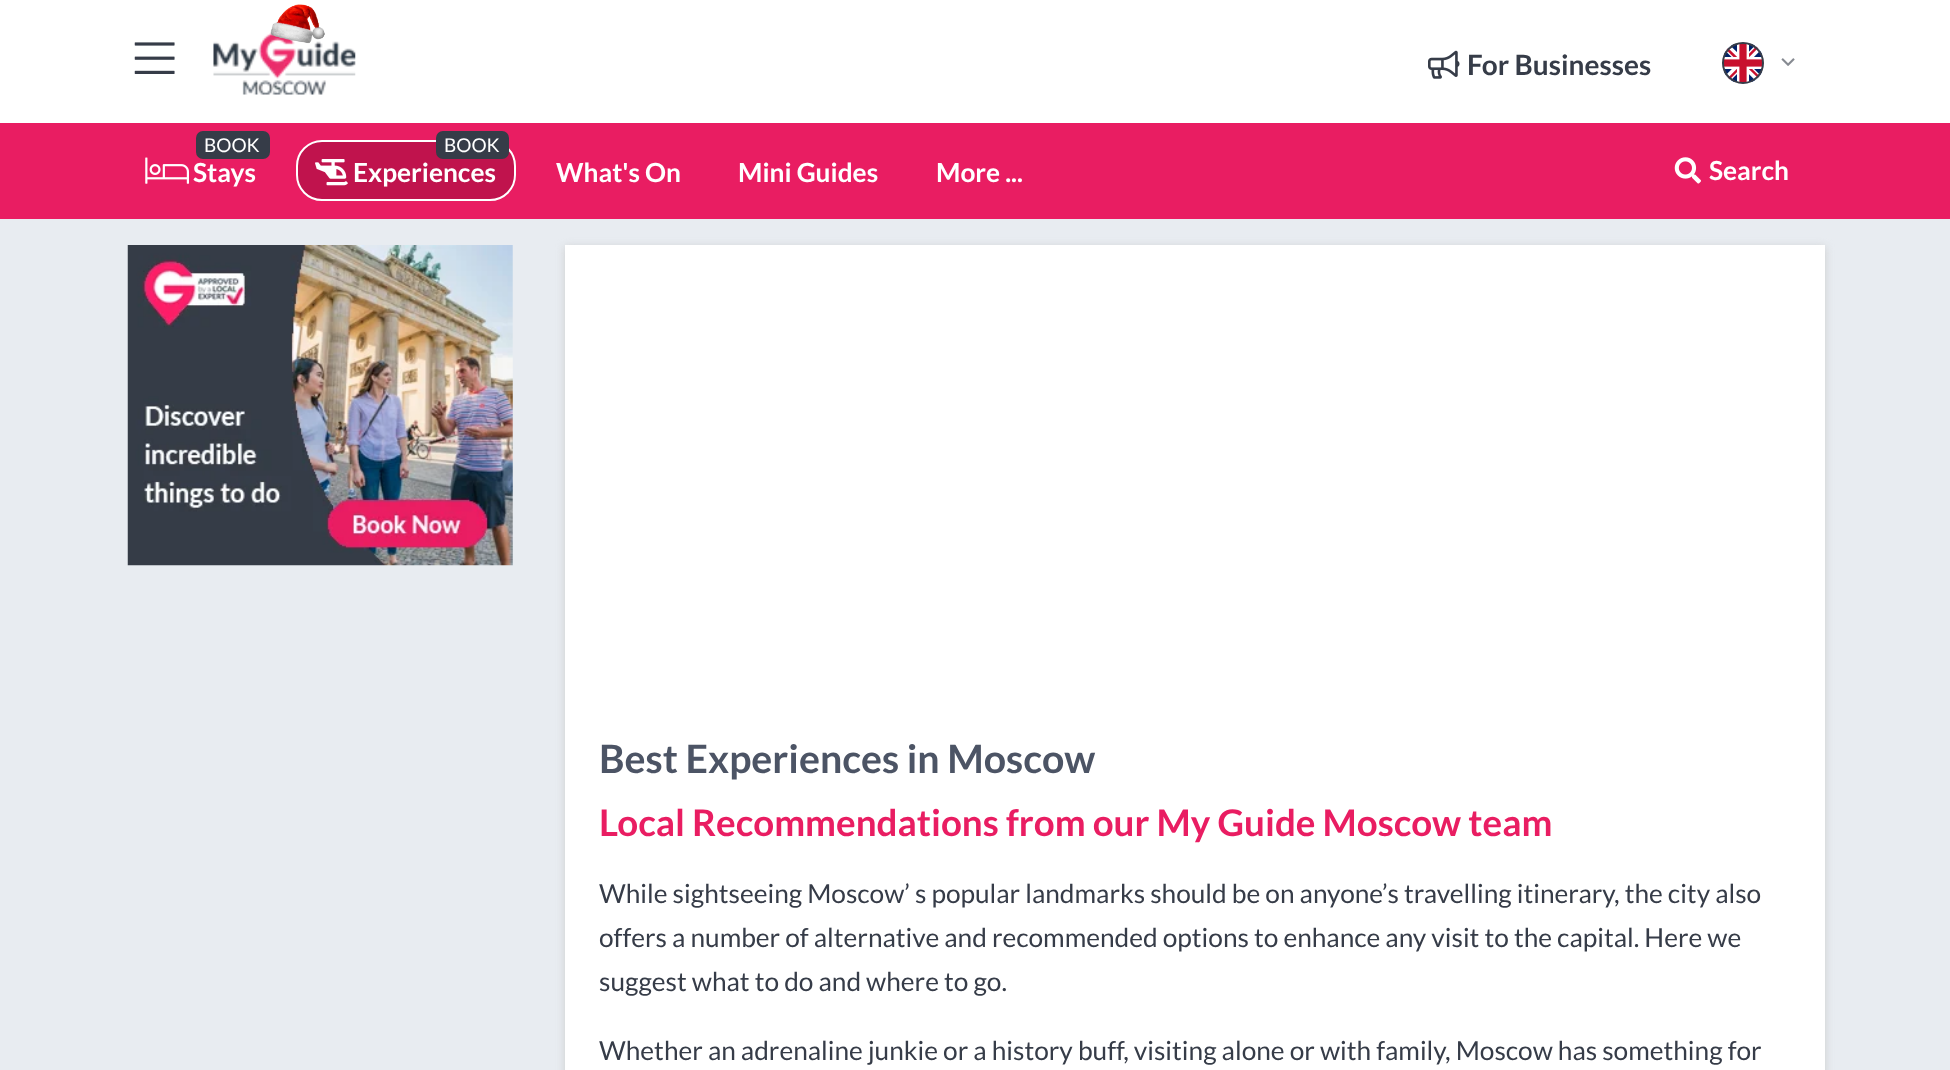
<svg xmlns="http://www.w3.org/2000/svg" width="1950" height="1070">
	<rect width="100%" height="100%" fill="#FFFFFF" />
	<image x="134" y="42" width="41" height="32" href="assets/img1.png" />
	<image x="213" y="33" width="143" height="62" href="assets/img3.png" />
	<image x="270" y="4" width="55" height="40" href="assets/img2.png" />
	<image x="1428" y="50" width="32" height="29" href="assets/img4.png" />
	<text x="1467" y="75" font-family="Lato" font-size="28" font-weight="700" fill="#363C48">For Businesses</text>
	<image x="1724" y="44" width="38" height="38" href="assets/img5.png" />
	<circle cx="1743" cy="63" r="20" fill="none" stroke="#363C48" stroke-width="2" />
	<image x="1781" y="58" width="14" height="8" href="assets/img6.png" />
	<rect x="0" y="123" width="1950" height="96" fill="#E91D62" />
	<rect x="196" y="131" width="74" height="28" rx="7" fill="#363C48" />
	<text x="204" y="152" font-family="Lato" font-size="19" fill="#FFFFFF">BOOK</text>
	<image x="145" y="157" width="44" height="27" href="assets/img7.png" />
	<text x="193" y="182" font-family="Lato" font-size="26.25" font-weight="700" fill="#FFFFFF">Stays</text>
	<rect x="297" y="141" width="218" height="59" rx="25" fill="#C0134D" stroke="#FFFFFF" stroke-width="2" />
	<rect x="436" y="131" width="73" height="28" rx="7" fill="#363C48" />
	<text x="444" y="152" font-family="Lato" font-size="19" fill="#FFFFFF">BOOK</text>
	<image x="315" y="159" width="33" height="27" href="assets/img8.png" />
	<g font-family="Lato" font-size="26.25" font-weight="700" fill="#FFFFFF">
		<text x="353" y="182">Experiences</text>
		<text x="556" y="182">What's On</text>
		<text x="738" y="182">Mini Guides</text>
		<text x="936" y="182">More ...</text>
	</g>
	<image x="1674" y="157" width="27" height="27" href="assets/img9.png" />
	<text x="1709" y="180" font-family="Lato" font-size="26.25" font-weight="700" fill="#FFFFFF">Search</text>
	<rect x="0" y="219" width="1950" height="851" fill="#E8ECF1" />
	<image x="127" y="245" width="386" height="321" href="assets/img10.png" />
	<rect x="565" y="247" width="1260" height="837" fill="#CCCCCC" filter="blur(4.5px)" />
	<rect x="565" y="245" width="1260" height="825" fill="#FFFFFF" />
	<text x="599" y="773" font-family="Lato" font-size="39.25" font-weight="700" fill="#4C5465">Best Experiences in Moscow</text>
	<text x="599" y="836" font-family="Lato" font-size="36.75" font-weight="700" fill="#E91D62">Local Recommendations from our My Guide Moscow team</text>
	<g font-family="Lato" font-size="26.25" fill="#363C48">
		<text x="599" y="903">While sightseeing Moscow’ s popular landmarks should be on anyone’s travelling itinerary, the city also</text>
		<text x="599" y="947">offers a number of alternative and recommended options to enhance any visit to the capital. Here we</text>
		<text x="599" y="991">suggest what to do and where to go.</text>
		<text x="599" y="1060">Whether an adrenaline junkie or a history buff, visiting alone or with family, Moscow has something for</text>
	</g>
</svg>
